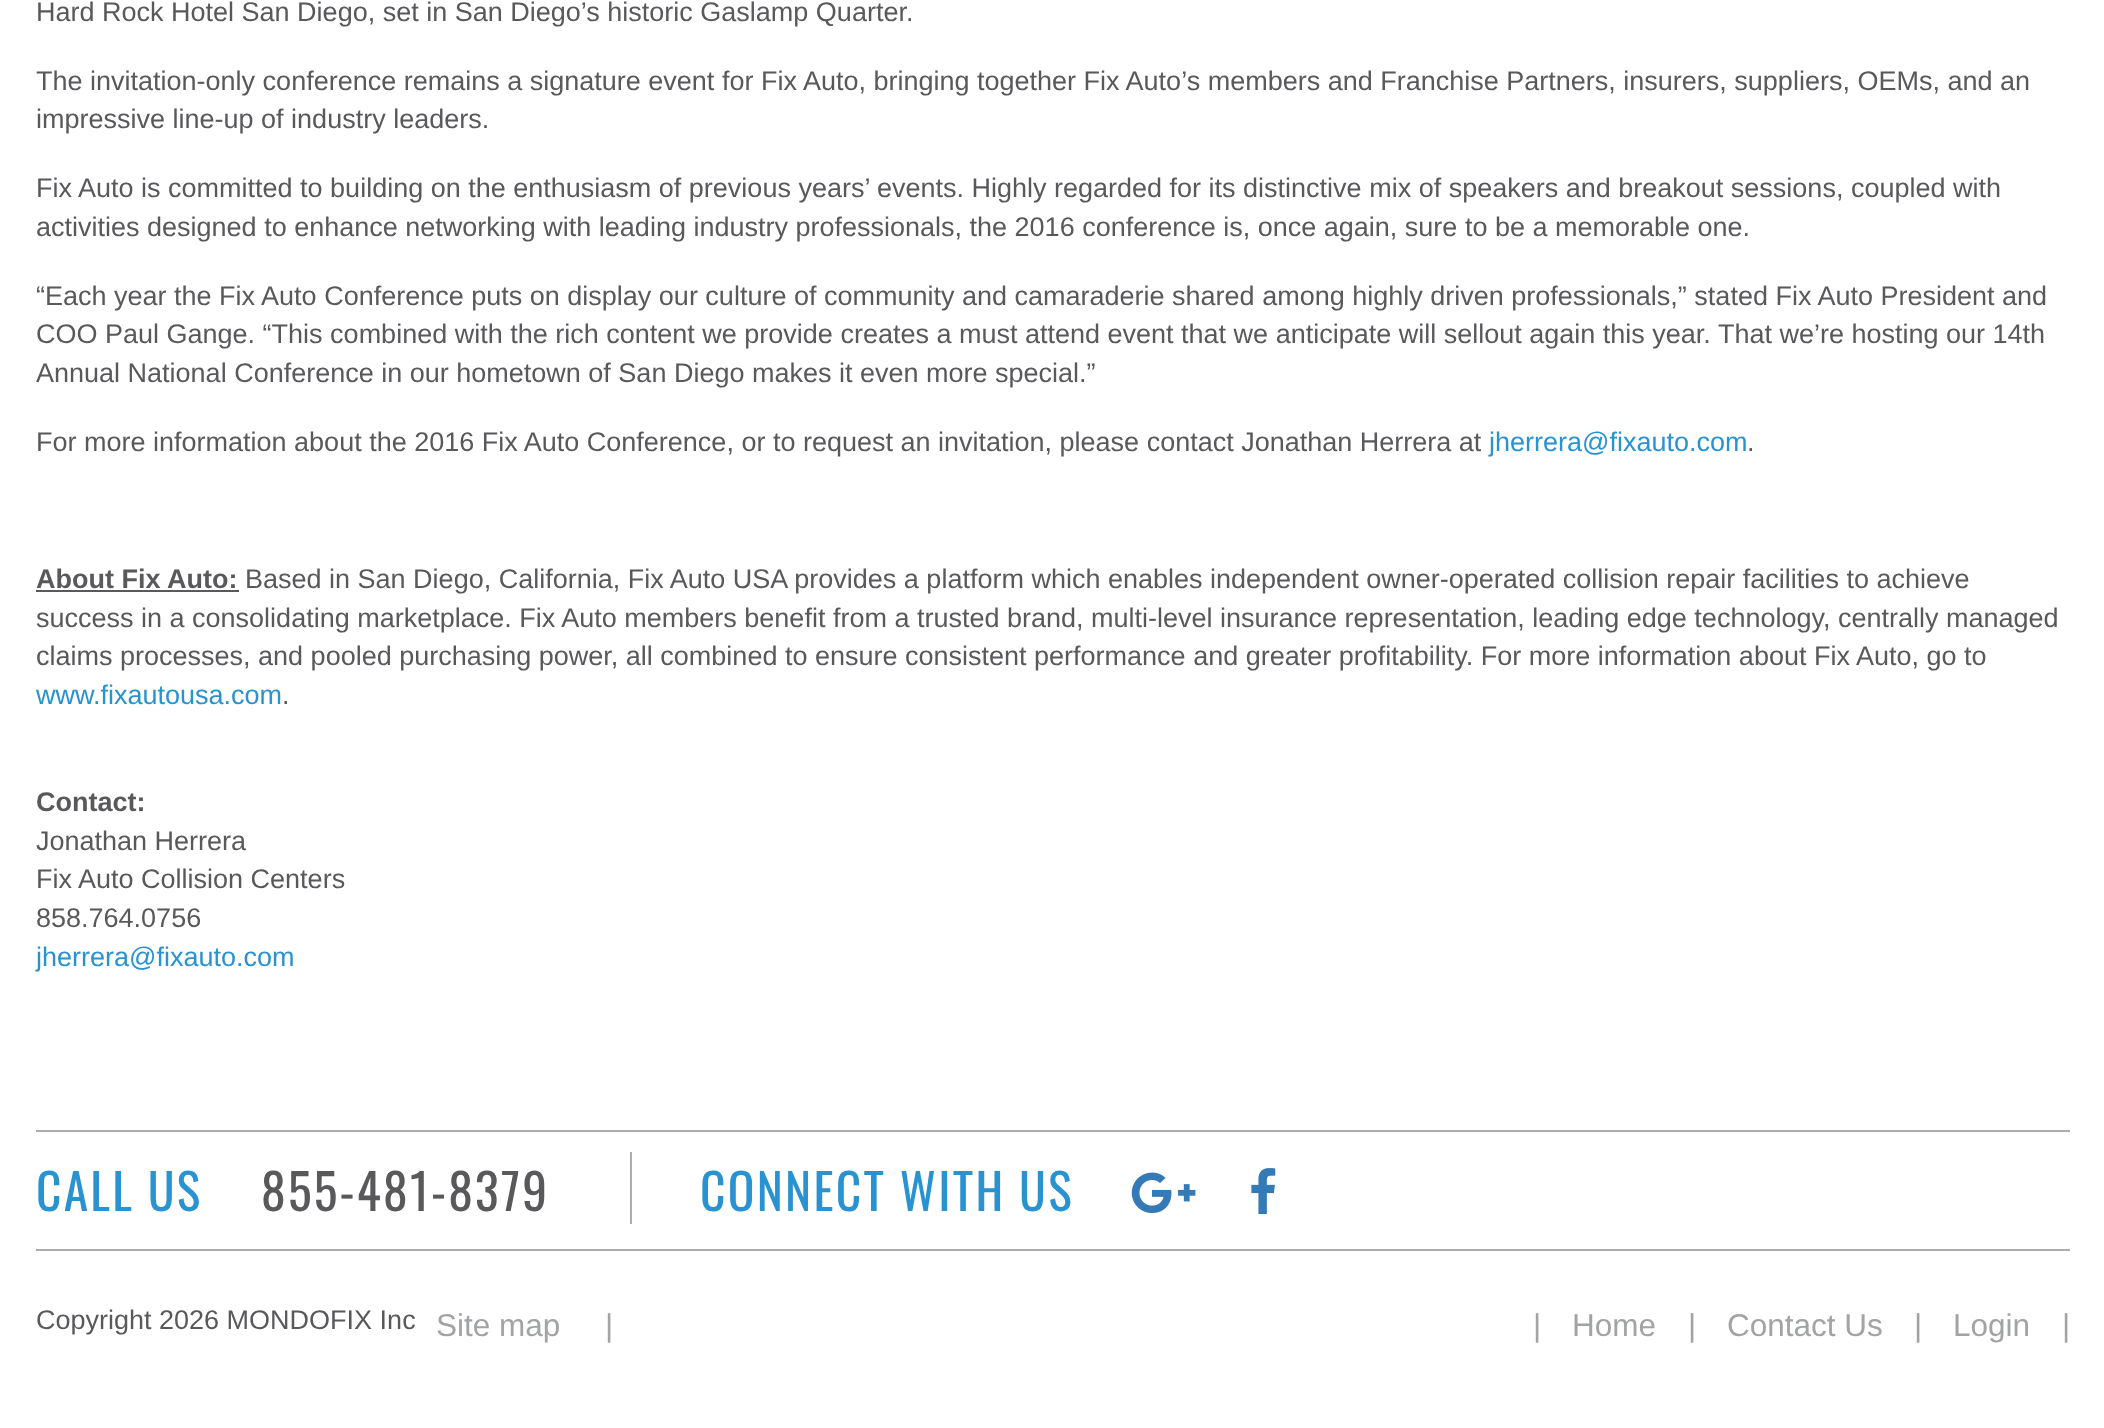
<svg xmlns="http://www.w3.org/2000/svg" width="2104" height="1428">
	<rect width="100%" height="100%" fill="#FFFFFF" />
	<g font-family="Liberation Sans" font-size="27" fill="#59595C">
		<text x="36" y="21">Hard Rock Hotel San Diego, set in San Diego’s historic Gaslamp Quarter.</text>
		<text x="36" y="90">The invitation-only conference remains a signature event for Fix Auto, bringing together Fix Auto’s members and Franchise Partners, insurers, suppliers, OEMs, and an</text>
		<text x="36" y="128">impressive line-up of industry leaders.</text>
		<text x="36" y="197">Fix Auto is committed to building on the enthusiasm of previous years’ events. Highly regarded for its distinctive mix of speakers and breakout sessions, coupled with</text>
		<text x="36" y="236">activities designed to enhance networking with leading industry professionals, the 2016 conference is, once again, sure to be a memorable one.</text>
		<text x="36" y="305">“Each year the Fix Auto Conference puts on display our culture of community and camaraderie shared among highly driven professionals,” stated Fix Auto President and</text>
		<text x="36" y="343">COO Paul Gange. “This combined with the rich content we provide creates a must attend event that we anticipate will sellout again this year. That we’re hosting our 14th</text>
		<text x="36" y="382">Annual National Conference in our hometown of San Diego makes it even more special.”</text>
		<text x="36" y="451">For more information about the 2016 Fix Auto Conference, or to request an invitation, please contact Jonathan Herrera at</text>
	</g>
	<text x="1489" y="451" font-family="Liberation Sans" font-size="27" fill="#2992D0">jherrera@fixauto.com</text>
	<text x="1747" y="451" font-family="Liberation Sans" font-size="27" fill="#59595C">.</text>
	<text x="36" y="588" font-family="Liberation Sans" font-size="27" font-weight="700" fill="#59595C">About Fix Auto:</text>
	<rect x="36" y="590" width="203" height="2" fill="#59595C" />
	<g font-family="Liberation Sans" font-size="27" fill="#59595C">
		<text x="245" y="588">Based in San Diego, California, Fix Auto USA provides a platform which enables independent owner-operated collision repair facilities to achieve</text>
		<text x="36" y="627">success in a consolidating marketplace. Fix Auto members benefit from a trusted brand, multi-level insurance representation, leading edge technology, centrally managed</text>
		<text x="36" y="665">claims processes, and pooled purchasing power, all combined to ensure consistent performance and greater profitability. For more information about Fix Auto, go to</text>
	</g>
	<text x="36" y="704" font-family="Liberation Sans" font-size="27" fill="#2992D0">www.fixautousa.com</text>
	<text x="282" y="704" font-family="Liberation Sans" font-size="27" fill="#59595C">.</text>
	<text x="36" y="811" font-family="Liberation Sans" font-size="27" font-weight="700" fill="#59595C">Contact:</text>
	<g font-family="Liberation Sans" font-size="27" fill="#59595C">
		<text x="36" y="850">Jonathan Herrera</text>
		<text x="36" y="888">Fix Auto Collision Centers</text>
		<text x="36" y="927">858.764.0756</text>
	</g>
	<text x="36" y="966" font-family="Liberation Sans" font-size="27" fill="#2992D0">jherrera@fixauto.com</text>
	<rect x="36" y="1130" width="2034" height="2" fill="#ACACAE" />
	<rect x="36" y="1249" width="2034" height="2" fill="#ACACAE" />
	<text x="36" y="1211" font-family="Oswald" font-size="49.5" letter-spacing="2.25" fill="#2992D0">CALL US</text>
	<text x="261" y="1211" font-family="Oswald" font-size="49.5" letter-spacing="2.25" fill="#59595C">855-481-8379</text>
	<text x="700" y="1211" font-family="Oswald" font-size="49.5" letter-spacing="2.25" fill="#2992D0">CONNECT WITH US</text>
	<rect x="630" y="1152" width="2" height="72" fill="#ACACAE" />
	<image x="1131" y="1172" width="65" height="42" href="assets/img1.png" />
	<image x="1251" y="1168" width="25" height="47" href="assets/img2.png" />
	<text x="36" y="1329" font-family="Liberation Sans" font-size="27" fill="#59595C">Copyright 2026 MONDOFIX Inc</text>
	<g font-family="Liberation Sans" font-size="31.5" fill="#A2A3A4">
		<text x="436" y="1336">Site map</text>
		<text x="605" y="1336">|</text>
		<text x="1533" y="1336">|</text>
		<text x="1572" y="1336">Home</text>
		<text x="1688" y="1336">|</text>
		<text x="1727" y="1336">Contact Us</text>
		<text x="1914" y="1336">|</text>
		<text x="1953" y="1336">Login</text>
		<text x="2062" y="1336">|</text>
	</g>
</svg>
